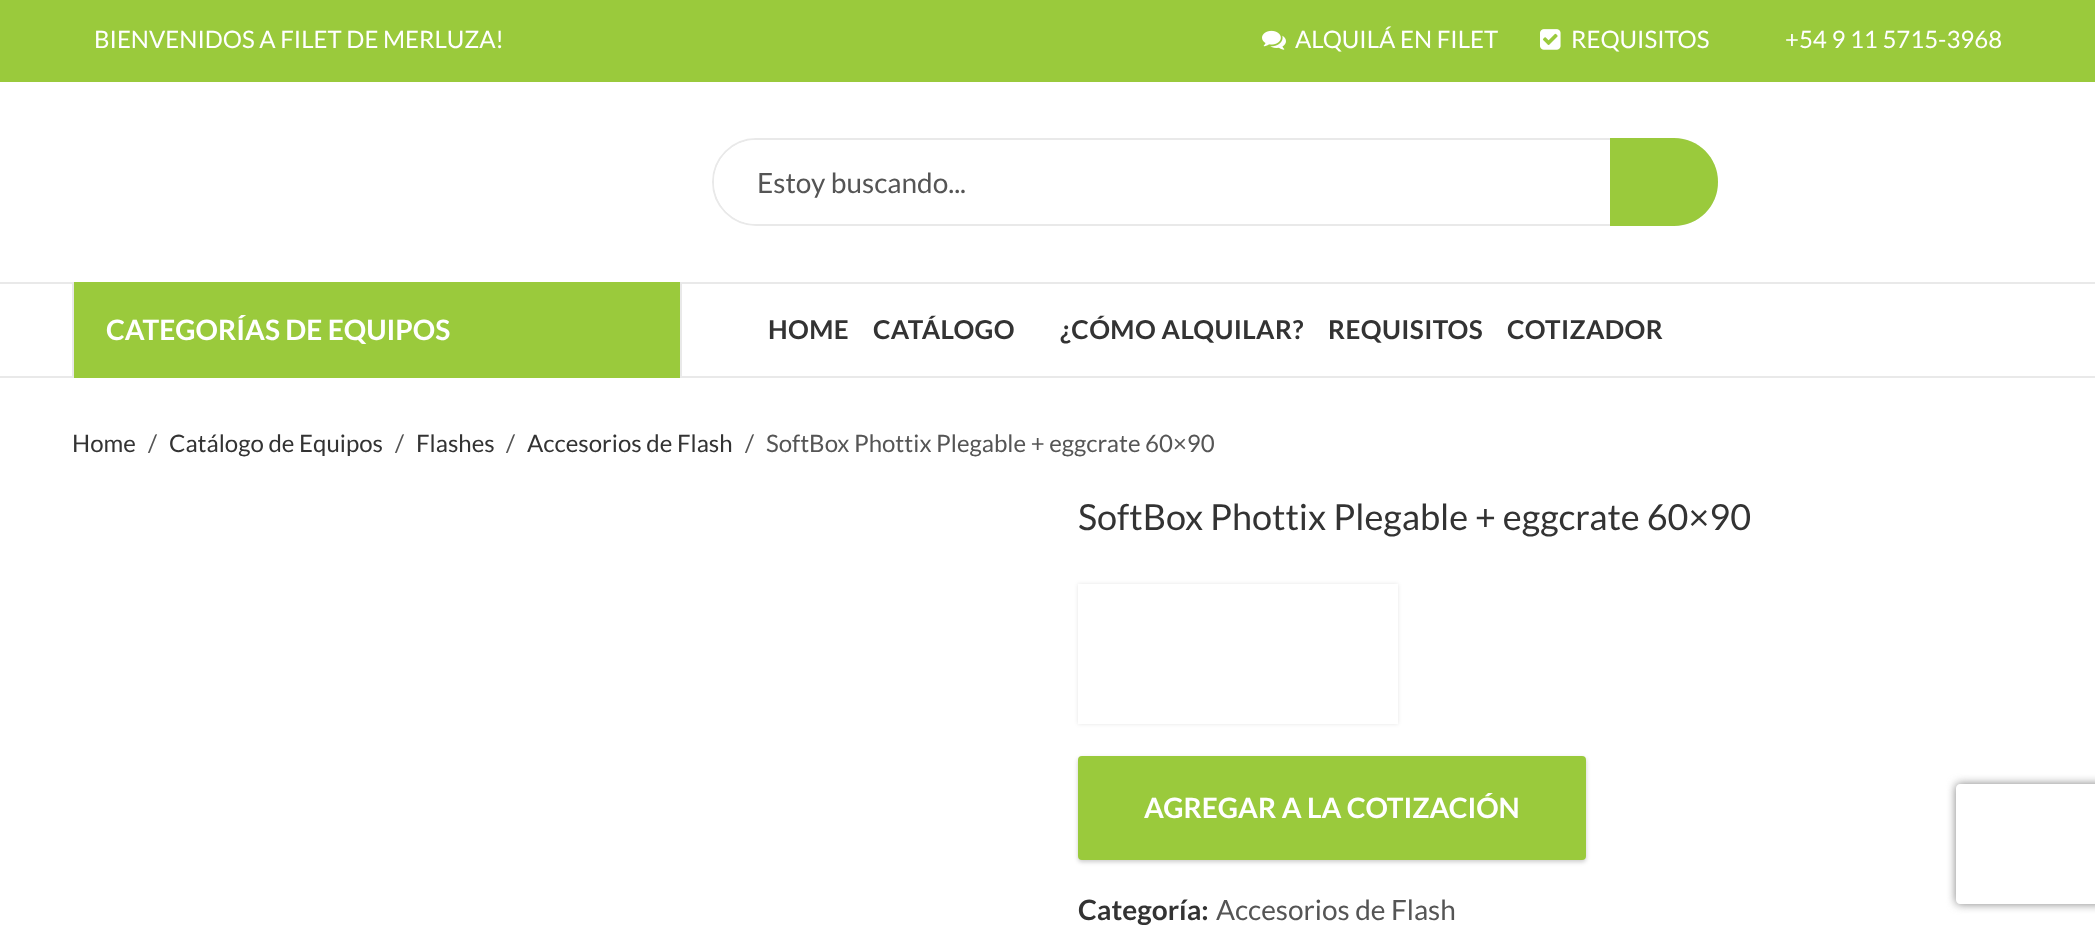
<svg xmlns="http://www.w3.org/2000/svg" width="2095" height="932">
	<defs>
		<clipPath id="clip1"><path d="M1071 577H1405V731H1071ZM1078 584H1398V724H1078Z" clip-rule="evenodd" /></clipPath>
		<clipPath id="clip2"><path d="M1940 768H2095V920H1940ZM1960 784H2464C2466 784 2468 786 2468 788V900C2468 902 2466 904 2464 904H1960C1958 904 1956 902 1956 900V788C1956 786 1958 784 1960 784Z" clip-rule="evenodd" /></clipPath>
	</defs>
	<rect width="100%" height="100%" fill="#FFFFFF" />
	<rect x="0" y="0" width="2095" height="82" fill="#9ACA3C" />
	<text x="94" y="48" font-family="Lato" font-size="24" fill="#FFFFFF">BIENVENIDOS A FILET DE MERLUZA!</text>
	<image x="1262" y="30" width="24" height="20" href="assets/img1.png" />
	<text x="1295" y="48" font-family="Lato" font-size="24" fill="#FFFFFF">ALQUILÁ EN FILET</text>
	<image x="1540" y="29" width="21" height="21" href="assets/img2.png" />
	<g font-family="Lato" font-size="24" fill="#FFFFFF">
		<text x="1571" y="48">REQUISITOS</text>
		<text x="1785" y="48">+54 9 11 5715-3968</text>
	</g>
	<rect x="713" y="139" width="1004" height="86" rx="43" fill="none" stroke="#E9E9E9" stroke-width="2" />
	<path d="M756 140H1612V224H756C733 224 714 205 714 182C714 159 733 140 756 140Z" fill="#FFFFFF" />
	<text x="757" y="193" font-family="Lato" font-size="28" fill="#555555">Estoy buscando...</text>
	<path d="M1610 138H1674C1698.5 138 1718 157.5 1718 182C1718 206.5 1698.5 226 1674 226H1610Z" fill="#9ACA3C" />
	<rect x="0" y="282" width="2095" height="2" fill="#E9E9E9" />
	<rect x="0" y="376" width="2095" height="2" fill="#E9E9E9" />
	<rect x="74" y="282" width="606" height="96" fill="#9ACA3C" />
	<rect x="680" y="282" width="2" height="96" fill="#E9E9E9" />
	<rect x="72" y="282" width="2" height="96" fill="#E9E9E9" />
	<text x="106" y="340" font-family="Lato" font-size="28" font-weight="700" fill="#FFFFFF">CATEGORÍAS DE EQUIPOS</text>
	<g font-family="Lato" font-size="26" font-weight="700" letter-spacing="0.4" fill="#333333">
		<text x="768" y="339">HOME</text>
		<text x="873" y="339">CATÁLOGO</text>
		<text x="1060" y="339">¿CÓMO ALQUILAR?</text>
		<text x="1328" y="339">REQUISITOS</text>
		<text x="1507" y="339">COTIZADOR</text>
	</g>
	<text x="72" y="452" font-family="Lato" font-size="24" fill="#333333">Home</text>
	<text x="148" y="452" font-family="Lato" font-size="24" fill="#555555">/</text>
	<text x="169" y="452" font-family="Lato" font-size="24" fill="#333333">Catálogo de Equipos</text>
	<text x="395" y="452" font-family="Lato" font-size="24" fill="#555555">/</text>
	<text x="416" y="452" font-family="Lato" font-size="24" fill="#333333">Flashes</text>
	<text x="506" y="452" font-family="Lato" font-size="24" fill="#555555">/</text>
	<text x="527" y="452" font-family="Lato" font-size="24" fill="#333333">Accesorios de Flash</text>
	<g font-family="Lato" font-size="24" fill="#555555">
		<text x="745" y="452">/</text>
		<text x="766" y="452">SoftBox Phottix Plegable + eggcrate 60×90</text>
	</g>
	<text x="1078" y="530" font-family="Lato" font-size="36" fill="#333333">SoftBox Phottix Plegable + eggcrate 60×90</text>
	<g clip-path="url(#clip1)">
		<rect x="1078" y="584" width="320" height="140" fill="#000000" fill-opacity="0.1" filter="blur(2px)" />
	</g>
	<rect x="1078" y="758" width="508" height="104" rx="4" fill="#000000" fill-opacity="0.2" filter="blur(2px)" />
	<rect x="1079" y="757" width="506" height="102" rx="3" fill="#9ACA3C" stroke="#9ACA3C" stroke-width="2" />
	<text x="1144" y="818" font-family="Lato" font-size="28" font-weight="700" fill="#FFFFFF">AGREGAR A LA COTIZACIÓN</text>
	<text x="1078" y="920" font-family="Lato" font-size="28" font-weight="700" fill="#333333">Categoría:</text>
	<text x="1216" y="920" font-family="Lato" font-size="28" fill="#555555">Accesorios de Flash</text>
	<g clip-path="url(#clip2)">
		<rect x="1956" y="784" width="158" height="120" rx="4" fill="#808080" filter="blur(5px)" />
	</g>
</svg>
